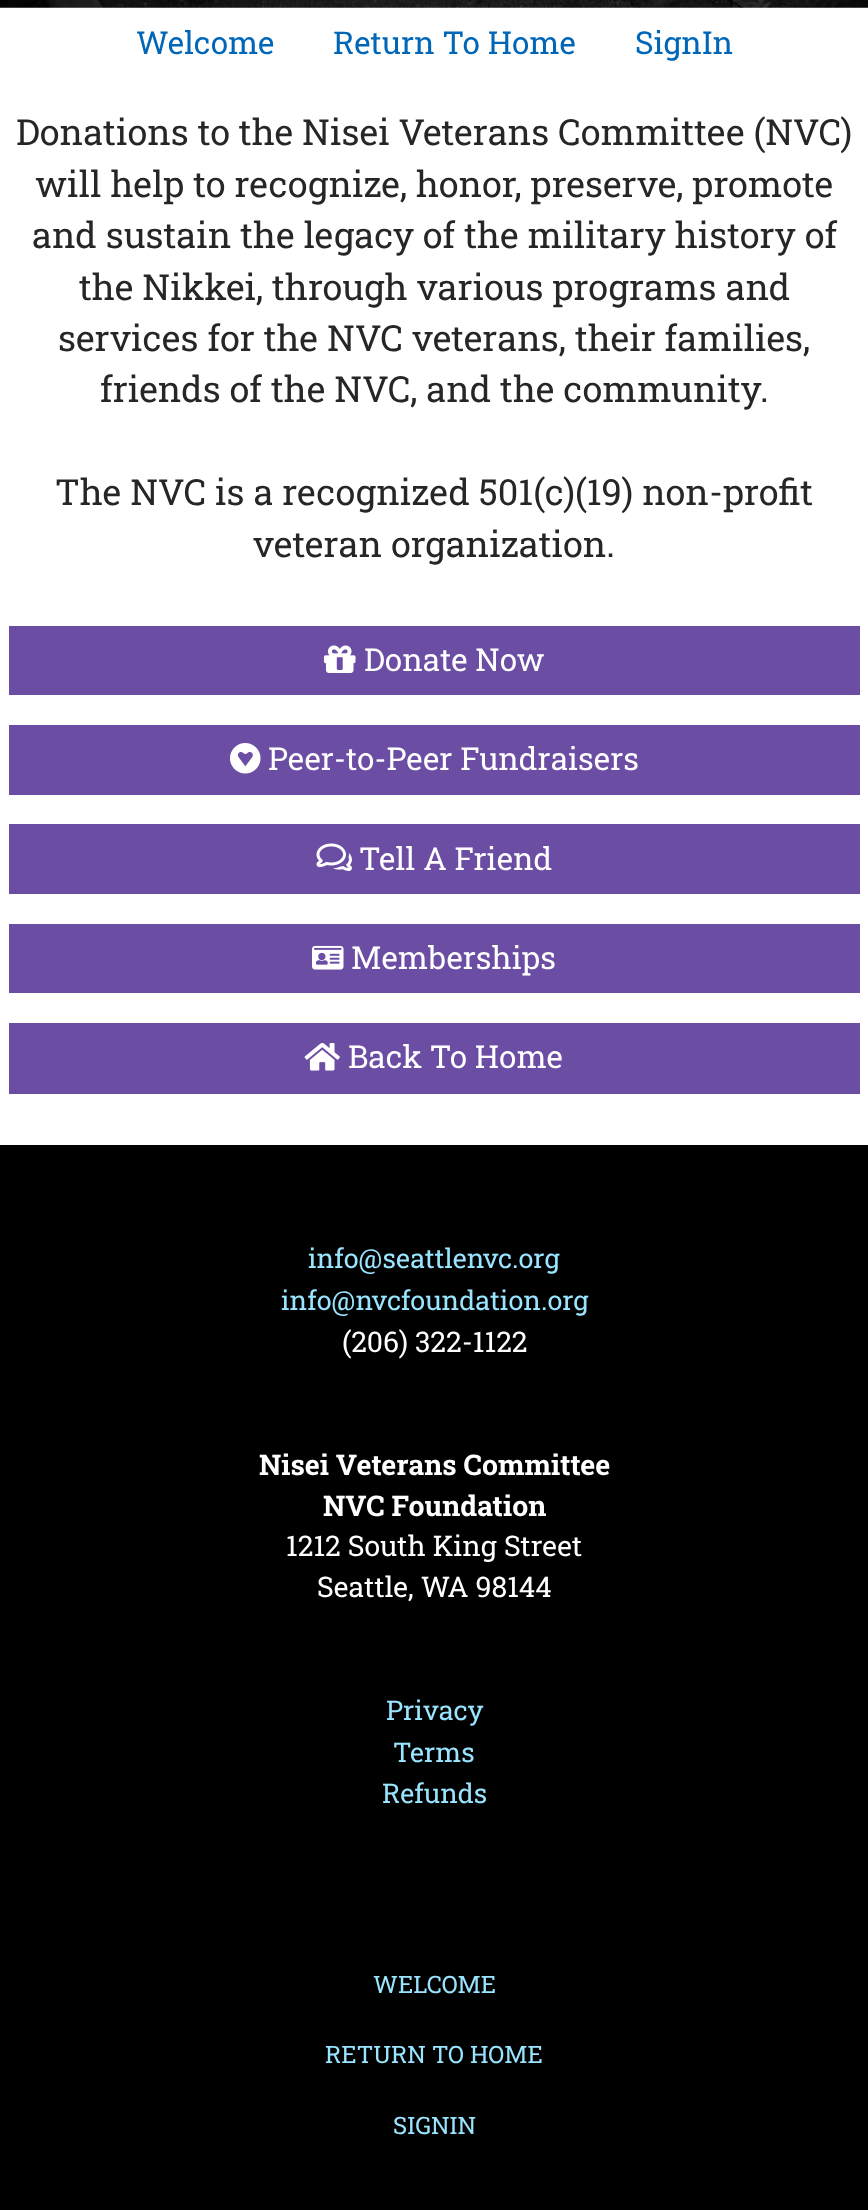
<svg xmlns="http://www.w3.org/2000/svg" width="868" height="2210">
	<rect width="100%" height="100%" fill="#FFFFFF" />
	<image x="0" y="0" width="868" height="8" href="assets/img1.png" />
	<image x="0" y="7" width="868" height="1" href="assets/img2.png" />
	<g font-family="Roboto Slab" font-size="31.5" fill="#0067B8">
		<text x="136" y="54">Welcome</text>
		<text x="333" y="54">Return To Home</text>
		<text x="635" y="54">SignIn</text>
	</g>
	<g font-family="Roboto Slab" font-size="36" fill="#262626">
		<text x="16" y="145">Donations to the Nisei Veterans Committee (NVC)</text>
		<text x="35" y="197">will help to recognize, honor, preserve, promote</text>
		<text x="32" y="248">and sustain the legacy of the military history of</text>
		<text x="79" y="300">the Nikkei, through various programs and</text>
		<text x="58" y="351">services for the NVC veterans, their families,</text>
		<text x="100" y="402">friends of the NVC, and the community.</text>
		<text x="55" y="505">The NVC is a recognized 501(c)(19) non-profit</text>
		<text x="253" y="557">veteran organization.</text>
	</g>
	<rect x="9" y="626" width="851" height="69" fill="#6B4DA4" />
	<image x="324" y="645" width="32" height="28" href="assets/img3.png" />
	<text x="364" y="671" font-family="Roboto Slab" font-size="31.5" fill="#FFFFFF">Donate Now</text>
	<rect x="9" y="725" width="851" height="70" fill="#6B4DA4" />
	<image x="230" y="743" width="31" height="31" href="assets/img4.png" />
	<text x="268" y="770" font-family="Roboto Slab" font-size="31.5" fill="#FFFFFF">Peer-to-Peer Fundraisers</text>
	<rect x="9" y="824" width="851" height="70" fill="#6B4DA4" />
	<image x="316" y="843" width="36" height="28" href="assets/img5.png" />
	<text x="359" y="870" font-family="Roboto Slab" font-size="31.5" fill="#FFFFFF">Tell A Friend</text>
	<rect x="9" y="924" width="851" height="69" fill="#6B4DA4" />
	<image x="312" y="945" width="32" height="25" href="assets/img6.png" />
	<text x="351" y="969" font-family="Roboto Slab" font-size="31.5" fill="#FFFFFF">Memberships</text>
	<rect x="9" y="1023" width="851" height="71" fill="#6B4DA4" />
	<image x="304" y="1043" width="36" height="28" href="assets/img7.png" />
	<text x="348" y="1068" font-family="Roboto Slab" font-size="31.5" fill="#FFFFFF">Back To Home</text>
	<rect x="0" y="1145" width="868" height="1065" fill="#000000" />
	<g font-family="Roboto Slab" font-size="27" fill="#99E5FF">
		<text x="308" y="1268">info@seattlenvc.org</text>
		<text x="281" y="1310">info@nvcfoundation.org</text>
	</g>
	<text x="342" y="1352" font-family="Roboto Slab" font-size="28.4" fill="#FFFFFF">(206) 322-1122</text>
	<g font-family="Roboto Slab" font-size="28.4" font-weight="700" fill="#FFFFFF">
		<text x="259" y="1475">Nisei Veterans Committee</text>
		<text x="323" y="1516">NVC Foundation</text>
	</g>
	<g font-family="Roboto Slab" font-size="28.4" fill="#FFFFFF">
		<text x="286" y="1556">1212 South King Street</text>
		<text x="317" y="1597">Seattle, WA 98144</text>
	</g>
	<g font-family="Roboto Slab" font-size="27" fill="#99E5FF">
		<text x="386" y="1720">Privacy</text>
		<text x="393" y="1762">Terms</text>
		<text x="382" y="1803">Refunds</text>
	</g>
	<g font-family="Roboto Slab" font-size="24" fill="#99E5FF">
		<text x="373" y="1993">WELCOME</text>
		<text x="325" y="2063">RETURN TO HOME</text>
		<text x="393" y="2134">SIGNIN</text>
	</g>
</svg>
